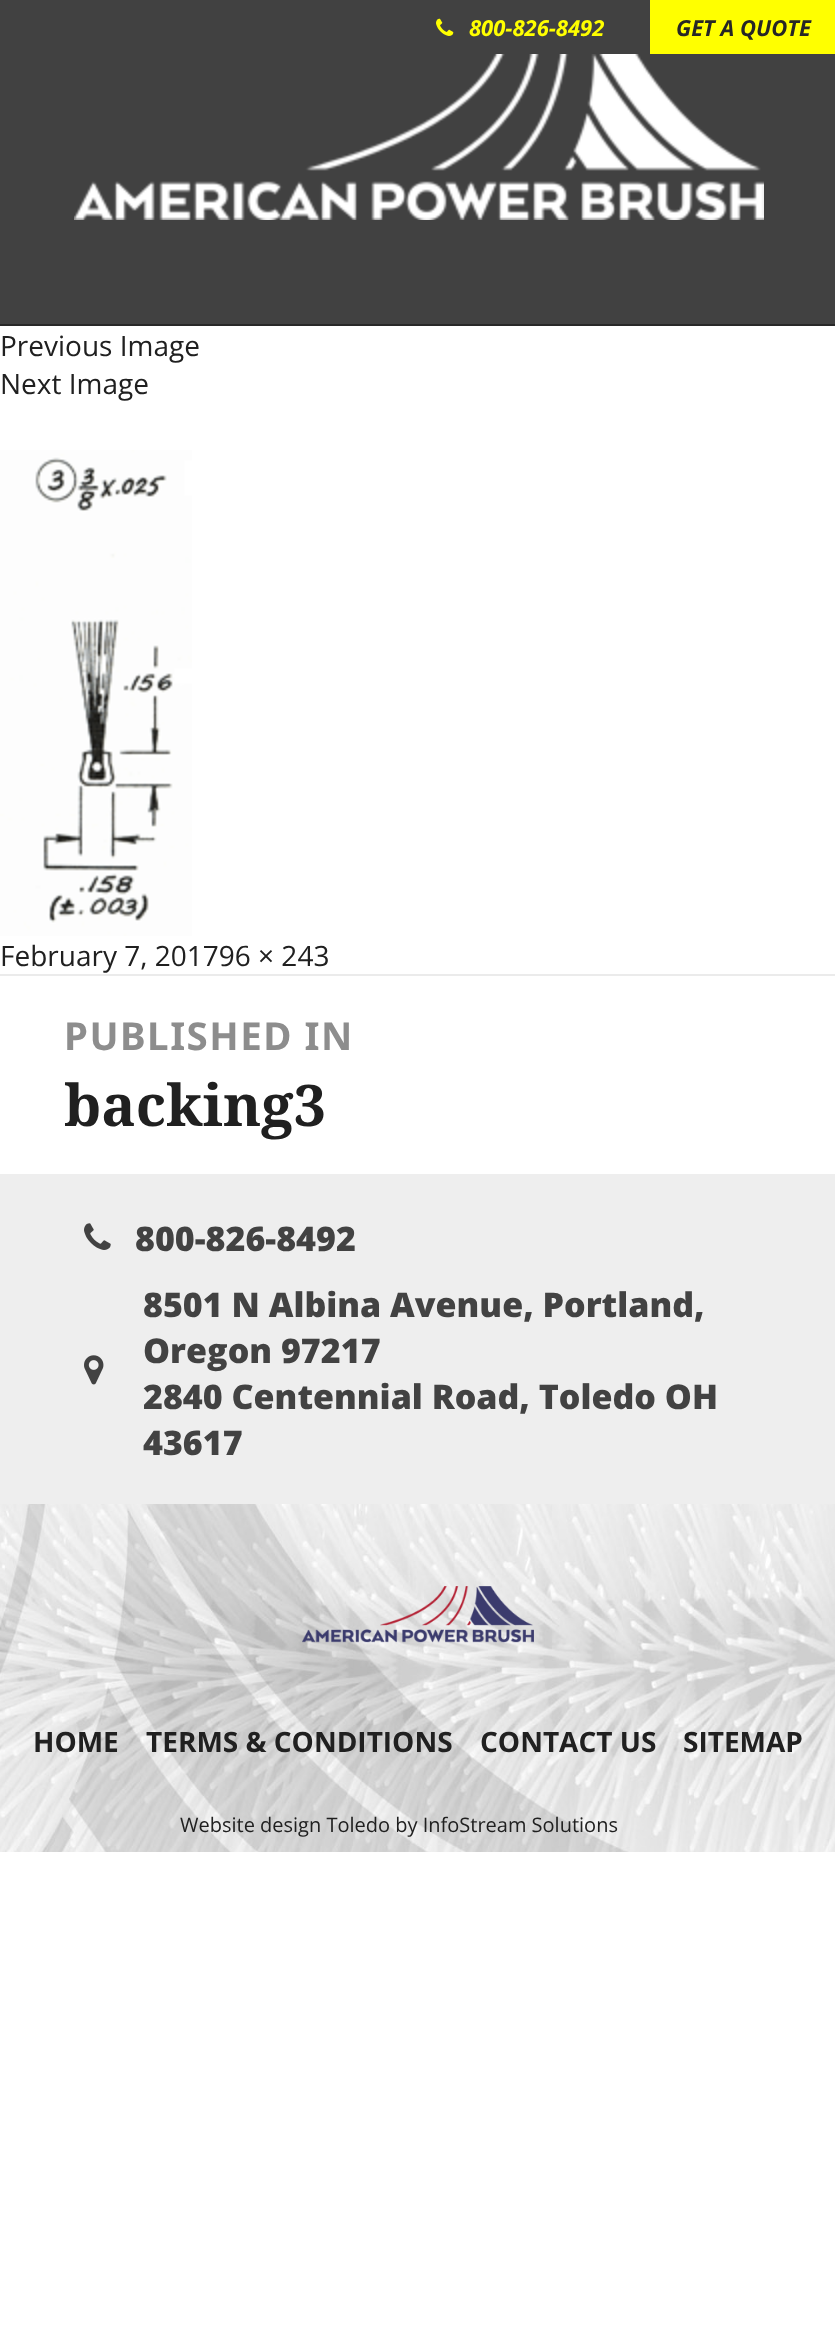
<svg xmlns="http://www.w3.org/2000/svg" width="835" height="2346">
	<rect width="100%" height="100%" fill="#FFFFFF" />
	<rect x="0" y="0" width="835" height="324" fill="#414141" />
	<rect x="0" y="324" width="835" height="2" fill="#282828" />
	<image x="74" y="54" width="690" height="166" href="assets/img1.png" />
	<image x="436" y="18" width="18" height="18" href="assets/img2.png" />
	<text x="469" y="36" font-family="Open Sans" font-size="22" font-weight="700" font-style="italic" fill="#FFFF00">800-826-8492</text>
	<rect x="650" y="0" width="185" height="54" fill="#FFFF00" />
	<text x="676" y="36" font-family="Open Sans" font-size="22" font-weight="700" font-style="italic" fill="#262626">GET A QUOTE</text>
	<g font-family="Open Sans" font-size="28" fill="#202020">
		<text x="0" y="356">Previous Image</text>
		<text x="0" y="394">Next Image</text>
	</g>
	<image x="0" y="450" width="192" height="486" href="assets/img3.png" />
	<text x="0" y="966" font-family="Open Sans" font-size="28" fill="#202020">February 7, 201796 × 243</text>
	<rect x="0" y="974" width="835" height="2" fill="#EBEBEB" />
	<text x="64" y="1050" font-family="Noto Sans" font-size="38.5" font-weight="700" letter-spacing="1.5" fill="#8D8D8D">PUBLISHED IN</text>
	<text x="64" y="1126" font-family="Noto Serif" font-size="57.5" font-weight="700" fill="#202020">backing3</text>
	<rect x="0" y="1174" width="835" height="330" fill="#EEEEEE" />
	<image x="84" y="1223" width="27" height="27" href="assets/img4.png" />
	<text x="135" y="1251" font-family="Open Sans" font-size="34" font-weight="800" fill="#424242">800-826-8492</text>
	<image x="84" y="1355" width="20" height="30" href="assets/img5.png" />
	<g font-family="Open Sans" font-size="34" font-weight="800" fill="#424242">
		<text x="143" y="1317">8501 N Albina Avenue, Portland,</text>
		<text x="143" y="1363">Oregon 97217</text>
		<text x="143" y="1409">2840 Centennial Road, Toledo OH</text>
		<text x="143" y="1455">43617</text>
	</g>
	<image x="0" y="1504" width="835" height="348" href="assets/img6.png" />
	<image x="302" y="1586" width="232" height="57" href="assets/img7.png" />
	<g font-family="Open Sans" font-size="28" font-weight="700" fill="#202020">
		<text x="33" y="1752">HOME</text>
		<text x="146" y="1752">TERMS &amp; CONDITIONS</text>
		<text x="480" y="1752">CONTACT US</text>
		<text x="683" y="1752">SITEMAP</text>
	</g>
	<text x="180" y="1832" font-family="Open Sans" font-size="20" fill="#202020">Website design Toledo by InfoStream Solutions</text>
</svg>
